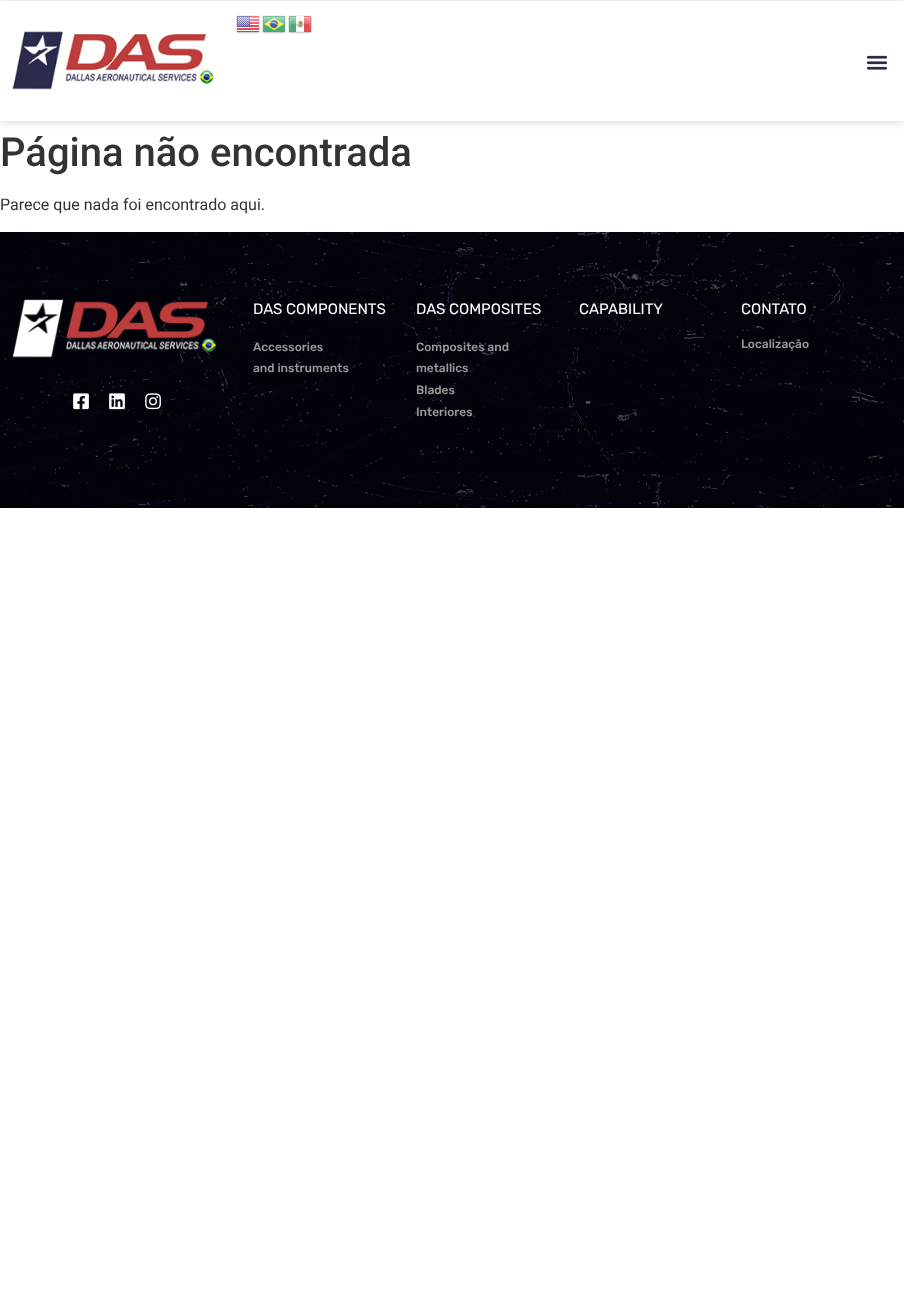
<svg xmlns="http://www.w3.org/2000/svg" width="904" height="1300">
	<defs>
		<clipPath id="clip1"><path d="M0 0H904V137H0ZM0 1H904V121H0Z" clip-rule="evenodd" /></clipPath>
	</defs>
	<rect width="100%" height="100%" fill="#FFFFFF" />
	<g clip-path="url(#clip1)">
		<rect x="0" y="1" width="904" height="120" fill="#000000" fill-opacity="0.19" filter="blur(5px)" />
	</g>
	<image x="12" y="31" width="202" height="59" href="assets/img1.png" />
	<image x="236" y="15" width="24" height="19" href="assets/img2.png" />
	<image x="262" y="15" width="24" height="19" href="assets/img3.png" />
	<image x="288" y="15" width="24" height="19" href="assets/img4.png" />
	<image x="866" y="55" width="22" height="15" href="assets/img5.png" />
	<text x="0" y="166" font-family="Roboto" font-size="40" font-weight="500" fill="#333333">Página não encontrada</text>
	<text x="0" y="210" font-family="Roboto" font-size="16" fill="#333333">Parece que nada foi encontrado aqui.</text>
	<image x="0" y="232" width="904" height="276" href="assets/img6.png" />
	<image x="13" y="299" width="204" height="59" href="assets/img7.png" />
	<image x="73" y="393" width="16" height="17" href="assets/img8.png" />
	<image x="109" y="393" width="16" height="17" href="assets/img9.png" />
	<image x="145" y="393" width="16" height="17" href="assets/img10.png" />
	<text x="253" y="314" font-family="Rubik" font-size="15" fill="#FFFFFF">DAS COMPONENTS</text>
	<g font-family="Rubik" font-size="12" font-weight="500" fill="#999999">
		<text x="253" y="351">Accessories</text>
		<text x="253" y="372">and instruments</text>
	</g>
	<text x="416" y="314" font-family="Rubik" font-size="15" fill="#FFFFFF">DAS COMPOSITES</text>
	<g font-family="Rubik" font-size="12" font-weight="500" fill="#999999">
		<text x="416" y="351">Composites and</text>
		<text x="416" y="372">metallics</text>
		<text x="416" y="394">Blades</text>
		<text x="416" y="416">Interiores</text>
	</g>
	<g font-family="Rubik" font-size="15" fill="#FFFFFF">
		<text x="579" y="314">CAPABILITY</text>
		<text x="741" y="314">CONTATO</text>
	</g>
	<text x="741" y="348" font-family="Rubik" font-size="12" font-weight="500" fill="#999999">Localização</text>
</svg>
